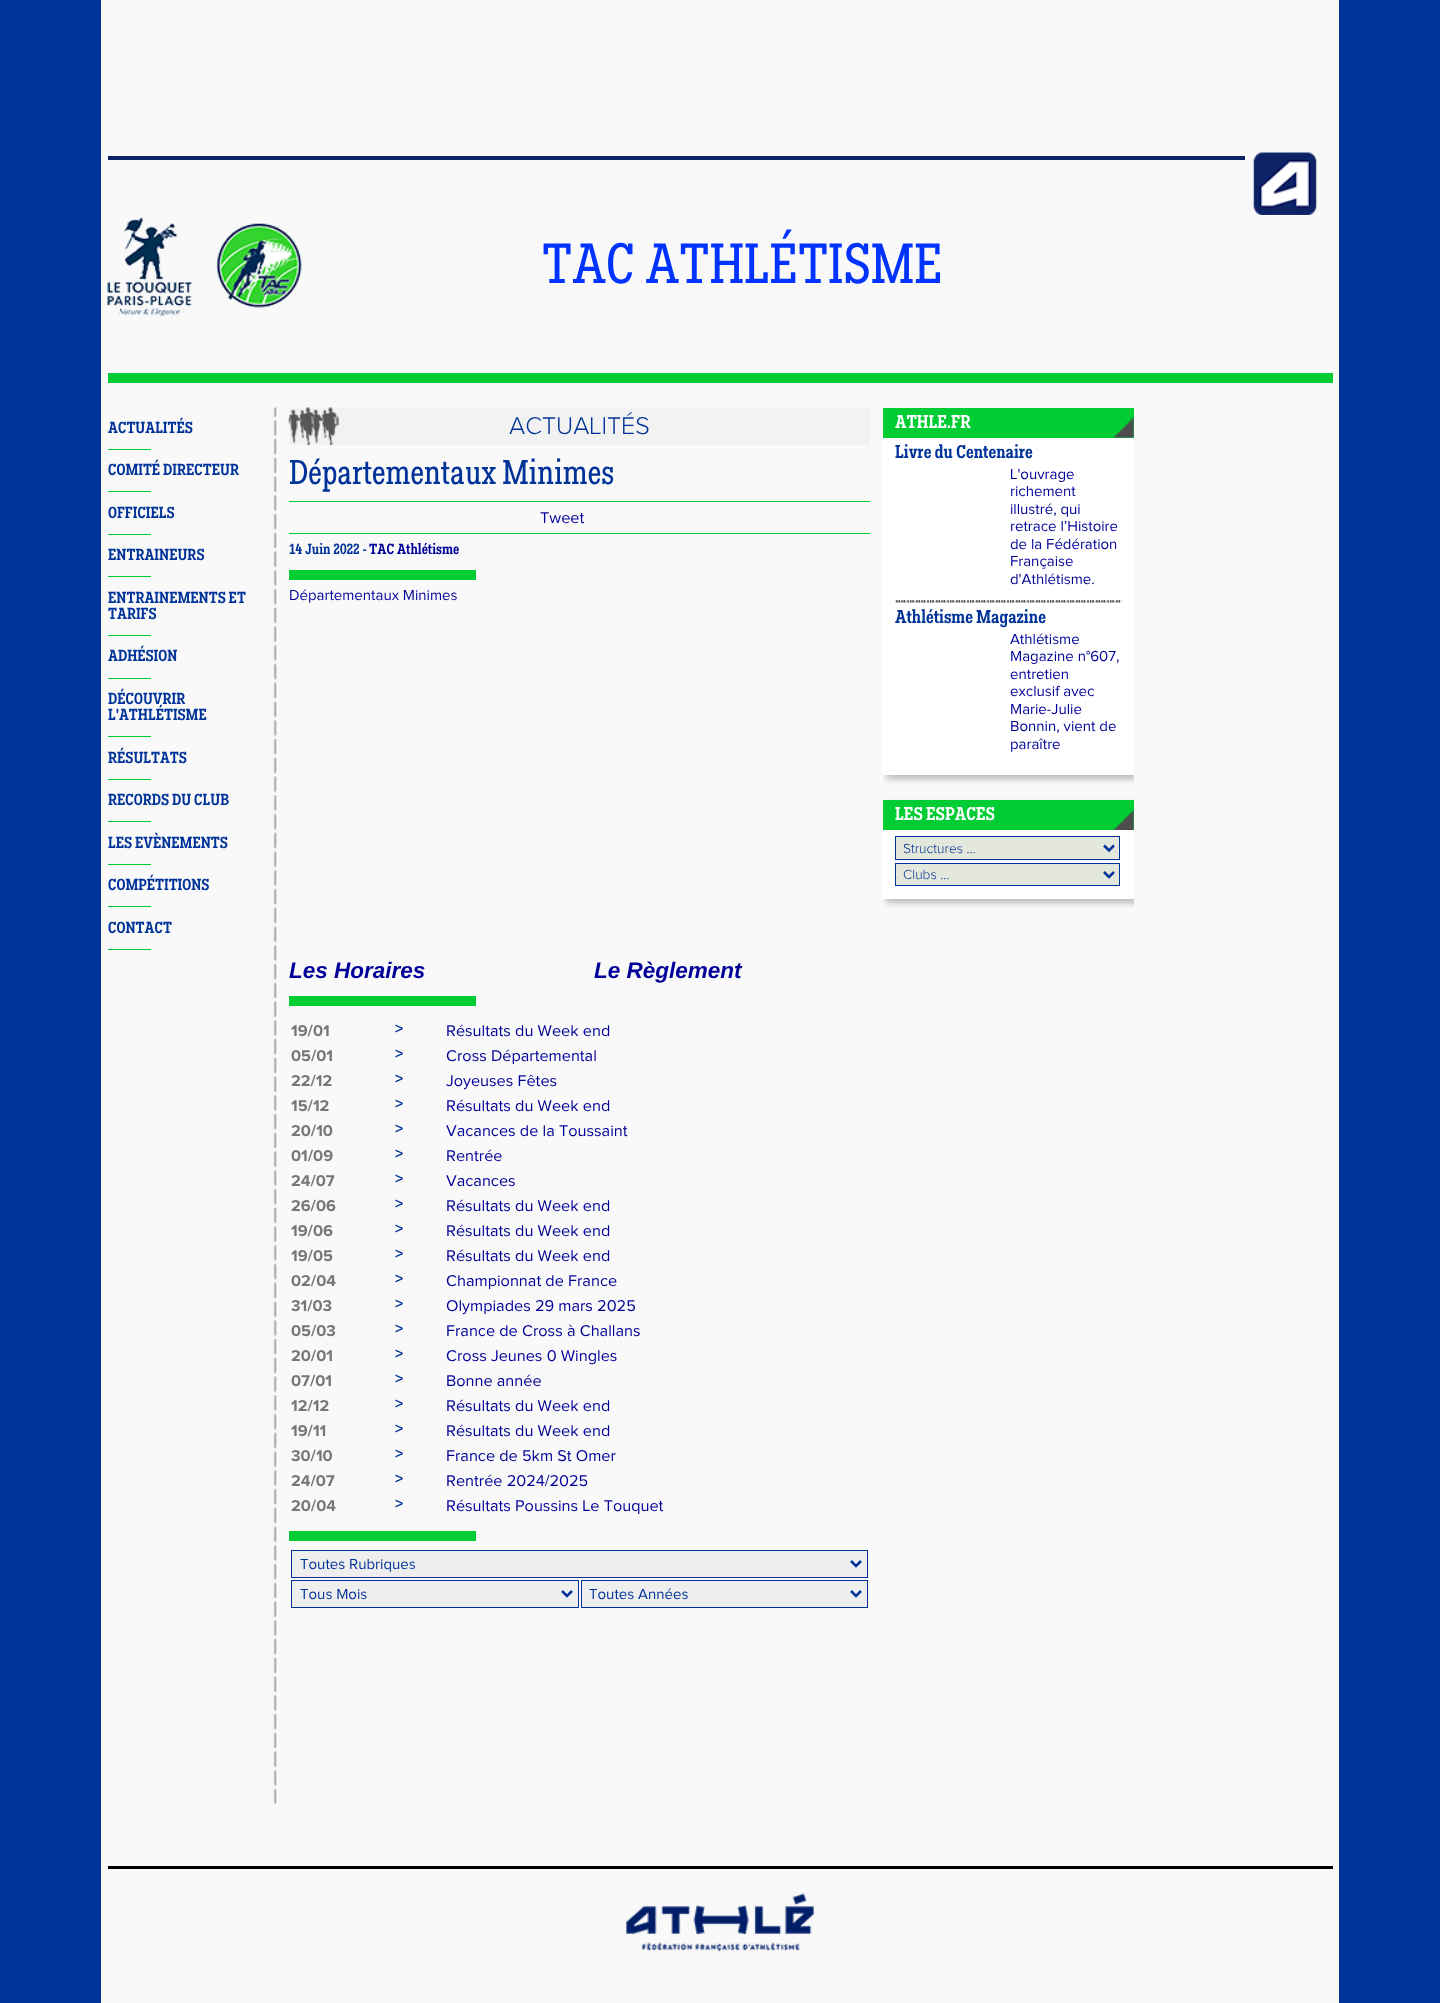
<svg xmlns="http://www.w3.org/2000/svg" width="1440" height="2003">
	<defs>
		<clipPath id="clip1"><rect x="108" y="408" width="162" height="542" /></clipPath>
		<clipPath id="clip2"><rect x="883" y="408" width="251" height="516" /></clipPath>
	</defs>
	<rect width="100%" height="100%" fill="#003399" />
	<rect x="101" y="0" width="1238" height="2003" fill="#F9F9F9" />
	<rect x="108" y="156" width="1137" height="4" fill="#0D2366" />
	<image x="1253" y="152" width="64" height="63" href="assets/img1.png" />
	<image x="107" y="217" width="195" height="100" href="assets/img2.png" />
	<text x="542" y="283" font-family="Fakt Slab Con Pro" font-size="57.5" fill="#0033FF">TAC ATHLÉTISME</text>
	<rect x="108" y="373" width="1225" height="10" fill="#00CC33" />
	<image x="273" y="407" width="4" height="1397" href="assets/img3.png" />
	<text x="108" y="433" font-family="Fakt Slab Con Pro" font-size="16.25" font-weight="600" fill="#003399">ACTUALITÉS</text>
	<rect x="108" y="449" width="43" height="1" fill="#00CC33" />
	<text x="108" y="475" font-family="Fakt Slab Con Pro" font-size="16.25" font-weight="600" fill="#003399">COMITÉ DIRECTEUR</text>
	<rect x="108" y="491" width="43" height="1" fill="#00CC33" />
	<text x="108" y="518" font-family="Fakt Slab Con Pro" font-size="16.25" font-weight="600" fill="#003399">OFFICIELS</text>
	<rect x="108" y="534" width="43" height="1" fill="#00CC33" />
	<g clip-path="url(#clip1)">
		<text x="108" y="560" font-family="Fakt Slab Con Pro" font-size="16.25" font-weight="600" fill="#003399">ENTRAINEURS</text>
	</g>
	<rect x="108" y="576" width="43" height="1" fill="#00CC33" />
	<g clip-path="url(#clip1)">
		<g font-family="Fakt Slab Con Pro" font-size="16.25" font-weight="600" fill="#003399">
			<text x="108" y="603">ENTRAINEMENTS ET</text>
			<text x="108" y="619">TARIFS</text>
		</g>
	</g>
	<rect x="108" y="635" width="43" height="1" fill="#00CC33" />
	<text x="108" y="661" font-family="Fakt Slab Con Pro" font-size="16.25" font-weight="600" fill="#003399">ADHÉSION</text>
	<rect x="108" y="678" width="43" height="1" fill="#00CC33" />
	<g clip-path="url(#clip1)">
		<g font-family="Fakt Slab Con Pro" font-size="16.25" font-weight="600" fill="#003399">
			<text x="108" y="704">DÉCOUVRIR</text>
			<text x="108" y="720">L'ATHLÉTISME</text>
		</g>
	</g>
	<rect x="108" y="736" width="43" height="1" fill="#00CC33" />
	<g clip-path="url(#clip1)">
		<text x="108" y="763" font-family="Fakt Slab Con Pro" font-size="16.25" font-weight="600" fill="#003399">RÉSULTATS</text>
	</g>
	<rect x="108" y="779" width="43" height="1" fill="#00CC33" />
	<g clip-path="url(#clip1)">
		<text x="108" y="805" font-family="Fakt Slab Con Pro" font-size="16.25" font-weight="600" fill="#003399">RECORDS DU CLUB</text>
	</g>
	<rect x="108" y="821" width="43" height="1" fill="#00CC33" />
	<g clip-path="url(#clip1)">
		<text x="108" y="848" font-family="Fakt Slab Con Pro" font-size="16.25" font-weight="600" fill="#003399">LES EVÈNEMENTS</text>
	</g>
	<rect x="108" y="864" width="43" height="1" fill="#00CC33" />
	<text x="108" y="890" font-family="Fakt Slab Con Pro" font-size="16.25" font-weight="600" fill="#003399">COMPÉTITIONS</text>
	<rect x="108" y="906" width="43" height="1" fill="#00CC33" />
	<text x="108" y="933" font-family="Fakt Slab Con Pro" font-size="16.25" font-weight="600" fill="#003399">CONTACT</text>
	<rect x="108" y="949" width="43" height="1" fill="#00CC33" />
	<rect x="289" y="408" width="581" height="37" fill="#F2F2F2" />
	<image x="288" y="407" width="51" height="38" href="assets/img4.png" />
	<text x="509" y="434" font-family="Proxima Nova" font-size="25" font-weight="300" fill="#003399">ACTUALITÉS</text>
	<text x="289" y="484" font-family="Fakt Slab Con Pro" font-size="35" fill="#003399">Départementaux Minimes</text>
	<rect x="289" y="501" width="581" height="1" fill="#00CC33" />
	<text x="540" y="523" font-family="Proxima Nova" font-size="16.25" fill="#000099">Tweet</text>
	<rect x="289" y="533" width="581" height="1" fill="#00CC33" />
	<text x="289" y="554" font-family="Fakt Slab Con Pro" font-size="15" font-weight="600" fill="#003399">14 Juin 2022 -</text>
	<text x="369" y="554" font-family="Fakt Slab Con Pro" font-size="15" font-weight="600" fill="#000099">TAC Athlétisme</text>
	<rect x="289" y="570" width="187" height="10" fill="#00CC33" />
	<text x="289" y="600" font-family="Proxima Nova" font-size="15" fill="#000099">Départementaux Minimes</text>
	<g font-family="Liberation Sans" font-size="22.5" font-weight="700" font-style="italic" fill="#000099">
		<text x="289" y="978">Les Horaires</text>
		<text x="594" y="978">Le Règlement</text>
	</g>
	<rect x="289" y="996" width="187" height="10" fill="#00CC33" />
	<text x="291" y="1036" font-family="Proxima Nova" font-size="16.25" font-weight="700" fill="#777777">19/01</text>
	<text x="395" y="1034" font-family="Proxima Nova" font-size="16.25" font-weight="700" fill="#003399">&gt;</text>
	<text x="446" y="1036" font-family="Proxima Nova" font-size="16.25" fill="#000099">Résultats du Week end</text>
	<text x="291" y="1061" font-family="Proxima Nova" font-size="16.25" font-weight="700" fill="#777777">05/01</text>
	<text x="395" y="1059" font-family="Proxima Nova" font-size="16.25" font-weight="700" fill="#003399">&gt;</text>
	<text x="446" y="1061" font-family="Proxima Nova" font-size="16.25" fill="#000099">Cross Départemental</text>
	<text x="291" y="1086" font-family="Proxima Nova" font-size="16.25" font-weight="700" fill="#777777">22/12</text>
	<text x="395" y="1084" font-family="Proxima Nova" font-size="16.25" font-weight="700" fill="#003399">&gt;</text>
	<text x="446" y="1086" font-family="Proxima Nova" font-size="16.25" fill="#000099">Joyeuses Fêtes</text>
	<text x="291" y="1111" font-family="Proxima Nova" font-size="16.25" font-weight="700" fill="#777777">15/12</text>
	<text x="395" y="1109" font-family="Proxima Nova" font-size="16.25" font-weight="700" fill="#003399">&gt;</text>
	<text x="446" y="1111" font-family="Proxima Nova" font-size="16.25" fill="#000099">Résultats du Week end</text>
	<text x="291" y="1136" font-family="Proxima Nova" font-size="16.25" font-weight="700" fill="#777777">20/10</text>
	<text x="395" y="1134" font-family="Proxima Nova" font-size="16.25" font-weight="700" fill="#003399">&gt;</text>
	<text x="446" y="1136" font-family="Proxima Nova" font-size="16.25" fill="#000099">Vacances de la Toussaint</text>
	<text x="291" y="1161" font-family="Proxima Nova" font-size="16.25" font-weight="700" fill="#777777">01/09</text>
	<text x="395" y="1159" font-family="Proxima Nova" font-size="16.25" font-weight="700" fill="#003399">&gt;</text>
	<text x="446" y="1161" font-family="Proxima Nova" font-size="16.25" fill="#000099">Rentrée</text>
	<text x="291" y="1186" font-family="Proxima Nova" font-size="16.25" font-weight="700" fill="#777777">24/07</text>
	<text x="395" y="1184" font-family="Proxima Nova" font-size="16.25" font-weight="700" fill="#003399">&gt;</text>
	<text x="446" y="1186" font-family="Proxima Nova" font-size="16.25" fill="#000099">Vacances</text>
	<text x="291" y="1211" font-family="Proxima Nova" font-size="16.25" font-weight="700" fill="#777777">26/06</text>
	<text x="395" y="1209" font-family="Proxima Nova" font-size="16.25" font-weight="700" fill="#003399">&gt;</text>
	<text x="446" y="1211" font-family="Proxima Nova" font-size="16.25" fill="#000099">Résultats du Week end</text>
	<text x="291" y="1236" font-family="Proxima Nova" font-size="16.25" font-weight="700" fill="#777777">19/06</text>
	<text x="395" y="1234" font-family="Proxima Nova" font-size="16.25" font-weight="700" fill="#003399">&gt;</text>
	<text x="446" y="1236" font-family="Proxima Nova" font-size="16.25" fill="#000099">Résultats du Week end</text>
	<text x="291" y="1261" font-family="Proxima Nova" font-size="16.25" font-weight="700" fill="#777777">19/05</text>
	<text x="395" y="1259" font-family="Proxima Nova" font-size="16.25" font-weight="700" fill="#003399">&gt;</text>
	<text x="446" y="1261" font-family="Proxima Nova" font-size="16.25" fill="#000099">Résultats du Week end</text>
	<text x="291" y="1286" font-family="Proxima Nova" font-size="16.25" font-weight="700" fill="#777777">02/04</text>
	<text x="395" y="1284" font-family="Proxima Nova" font-size="16.25" font-weight="700" fill="#003399">&gt;</text>
	<text x="446" y="1286" font-family="Proxima Nova" font-size="16.25" fill="#000099">Championnat de France</text>
	<text x="291" y="1311" font-family="Proxima Nova" font-size="16.25" font-weight="700" fill="#777777">31/03</text>
	<text x="395" y="1309" font-family="Proxima Nova" font-size="16.25" font-weight="700" fill="#003399">&gt;</text>
	<text x="446" y="1311" font-family="Proxima Nova" font-size="16.25" fill="#000099">Olympiades 29 mars 2025</text>
	<text x="291" y="1336" font-family="Proxima Nova" font-size="16.25" font-weight="700" fill="#777777">05/03</text>
	<text x="395" y="1334" font-family="Proxima Nova" font-size="16.25" font-weight="700" fill="#003399">&gt;</text>
	<text x="446" y="1336" font-family="Proxima Nova" font-size="16.25" fill="#000099">France de Cross à Challans</text>
	<text x="291" y="1361" font-family="Proxima Nova" font-size="16.25" font-weight="700" fill="#777777">20/01</text>
	<text x="395" y="1359" font-family="Proxima Nova" font-size="16.25" font-weight="700" fill="#003399">&gt;</text>
	<text x="446" y="1361" font-family="Proxima Nova" font-size="16.25" fill="#000099">Cross Jeunes 0 Wingles</text>
	<text x="291" y="1386" font-family="Proxima Nova" font-size="16.25" font-weight="700" fill="#777777">07/01</text>
	<text x="395" y="1384" font-family="Proxima Nova" font-size="16.25" font-weight="700" fill="#003399">&gt;</text>
	<text x="446" y="1386" font-family="Proxima Nova" font-size="16.25" fill="#000099">Bonne année</text>
	<text x="291" y="1411" font-family="Proxima Nova" font-size="16.25" font-weight="700" fill="#777777">12/12</text>
	<text x="395" y="1409" font-family="Proxima Nova" font-size="16.25" font-weight="700" fill="#003399">&gt;</text>
	<text x="446" y="1411" font-family="Proxima Nova" font-size="16.25" fill="#000099">Résultats du Week end</text>
	<text x="291" y="1436" font-family="Proxima Nova" font-size="16.25" font-weight="700" fill="#777777">19/11</text>
	<text x="395" y="1434" font-family="Proxima Nova" font-size="16.25" font-weight="700" fill="#003399">&gt;</text>
	<text x="446" y="1436" font-family="Proxima Nova" font-size="16.25" fill="#000099">Résultats du Week end</text>
	<text x="291" y="1461" font-family="Proxima Nova" font-size="16.25" font-weight="700" fill="#777777">30/10</text>
	<text x="395" y="1459" font-family="Proxima Nova" font-size="16.25" font-weight="700" fill="#003399">&gt;</text>
	<text x="446" y="1461" font-family="Proxima Nova" font-size="16.25" fill="#000099">France de 5km St Omer</text>
	<text x="291" y="1486" font-family="Proxima Nova" font-size="16.25" font-weight="700" fill="#777777">24/07</text>
	<text x="395" y="1484" font-family="Proxima Nova" font-size="16.25" font-weight="700" fill="#003399">&gt;</text>
	<text x="446" y="1486" font-family="Proxima Nova" font-size="16.25" fill="#000099">Rentrée 2024/2025</text>
	<text x="291" y="1511" font-family="Proxima Nova" font-size="16.25" font-weight="700" fill="#777777">20/04</text>
	<text x="395" y="1509" font-family="Proxima Nova" font-size="16.25" font-weight="700" fill="#003399">&gt;</text>
	<text x="446" y="1511" font-family="Proxima Nova" font-size="16.25" fill="#000099">Résultats Poussins Le Touquet</text>
	<rect x="289" y="1531" width="187" height="10" fill="#00CC33" />
	<rect x="291.5" y="1550.5" width="576" height="27" fill="#EEEEEE" stroke="#003399" />
	<path d="M851 1561L856 1566L861 1561" fill="none" stroke="#003399" stroke-width="2.5" />
	<text x="300" y="1569" font-family="Proxima Nova" font-size="15" fill="#003399">Toutes Rubriques</text>
	<rect x="291.5" y="1580.5" width="287" height="27" fill="#EEEEEE" stroke="#003399" />
	<path d="M562 1591L567 1596L572 1591" fill="none" stroke="#003399" stroke-width="2.5" />
	<text x="300" y="1599" font-family="Proxima Nova" font-size="15" fill="#003399">Tous Mois</text>
	<rect x="581.5" y="1580.5" width="286" height="27" fill="#EEEEEE" stroke="#003399" />
	<path d="M851 1591L856 1596L861 1591" fill="none" stroke="#003399" stroke-width="2.5" />
	<text x="589" y="1599" font-family="Proxima Nova" font-size="15" fill="#003399">Toutes Années</text>
	<g clip-path="url(#clip2)">
		<rect x="886" y="411" width="252" height="368" fill="#000000" fill-opacity="0.25" filter="blur(3px)" />
	</g>
	<rect x="883" y="438" width="251" height="337" fill="#FFFFFF" />
	<rect x="883" y="408" width="251" height="30" fill="#00CC33" />
	<image x="1113" y="417" width="21" height="21" href="assets/img5.png" />
	<text x="895" y="428" font-family="Fakt Slab Con Pro" font-size="18.75" font-weight="600" fill="#FFFFFF">ATHLE.FR</text>
	<text x="895" y="458" font-family="Fakt Slab Con Pro" font-size="18.75" font-weight="600" fill="#003399">Livre du Centenaire</text>
	<g font-family="Proxima Nova" font-size="15" fill="#000099">
		<text x="1010" y="479">L'ouvrage</text>
		<text x="1010" y="496">richement</text>
		<text x="1010" y="514">illustré, qui</text>
		<text x="1010" y="531">retrace l’Histoire</text>
		<text x="1010" y="549">de la Fédération</text>
		<text x="1010" y="566">Française</text>
		<text x="1010" y="584">d'Athlétisme.</text>
	</g>
	<image x="895" y="600" width="227" height="3" href="assets/img6.png" />
	<text x="895" y="623" font-family="Fakt Slab Con Pro" font-size="18.75" font-weight="600" fill="#003399">Athlétisme Magazine</text>
	<g font-family="Proxima Nova" font-size="15" fill="#000099">
		<text x="1010" y="644">Athlétisme</text>
		<text x="1010" y="661">Magazine n°607,</text>
		<text x="1010" y="679">entretien</text>
		<text x="1010" y="696">exclusif avec</text>
		<text x="1010" y="714">Marie-Julie</text>
		<text x="1010" y="731">Bonnin, vient de</text>
		<text x="1010" y="749">paraître</text>
	</g>
	<g clip-path="url(#clip2)">
		<rect x="886" y="804" width="252" height="99" fill="#000000" fill-opacity="0.25" filter="blur(3px)" />
	</g>
	<rect x="883" y="830" width="251" height="69" fill="#FFFFFF" />
	<rect x="883" y="800" width="251" height="30" fill="#00CC33" />
	<image x="1113" y="810" width="21" height="20" href="assets/img7.png" />
	<text x="895" y="820" font-family="Fakt Slab Con Pro" font-size="18.75" font-weight="600" fill="#FFFFFF">LES ESPACES</text>
	<rect x="895.5" y="836.5" width="224" height="23" fill="#E4E7DB" stroke="#003399" />
	<path d="M1104 845.5L1109 850.5L1114 845.5" fill="none" stroke="#003399" stroke-width="2.5" />
	<text x="903" y="853" font-family="Proxima Nova" font-size="13.75" font-weight="300" fill="#003399">Structures ...</text>
	<rect x="895.5" y="863.5" width="224" height="22" fill="#E4E7DB" stroke="#003399" />
	<path d="M1104 872L1109 877L1114 872" fill="none" stroke="#003399" stroke-width="2.5" />
	<text x="903" y="879" font-family="Proxima Nova" font-size="13.75" font-weight="300" fill="#003399">Clubs ...</text>
	<rect x="108" y="1866" width="1225" height="3" fill="#000000" />
	<image x="626" y="1893" width="188" height="59" href="assets/img8.png" />
</svg>
